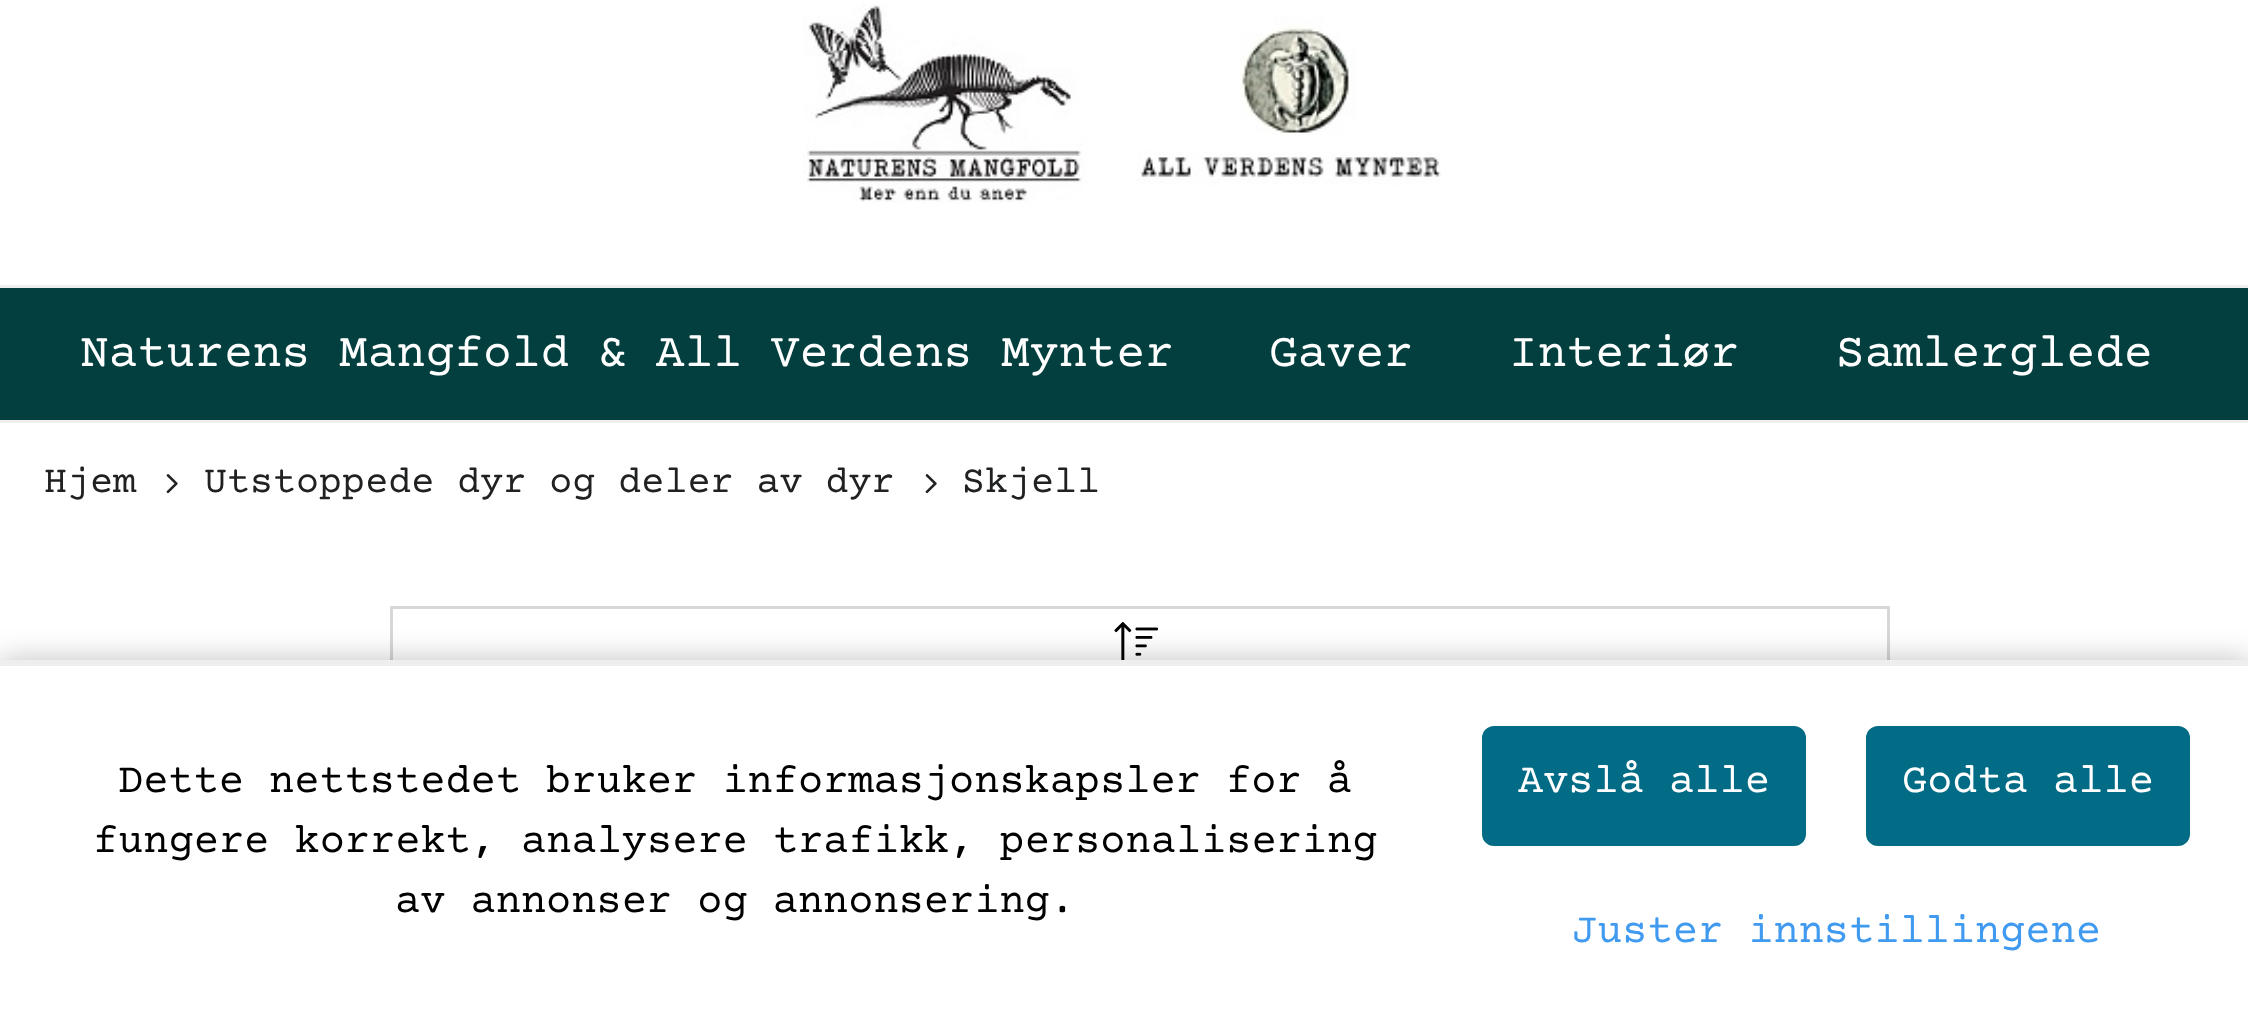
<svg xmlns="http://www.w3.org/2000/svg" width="2248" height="1025">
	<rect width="100%" height="100%" fill="#FFFFFF" />
	<image x="803" y="3" width="638" height="200" href="assets/img1.png" />
	<rect x="0" y="288" width="2248" height="132" fill="#033F3F" />
	<rect x="0" y="285" width="2248" height="3" fill="#EEEEEE" />
	<rect x="0" y="420" width="2248" height="3" fill="#EEEEEE" />
	<g font-family="Courier Prime" font-size="48" fill="#FFFFFF">
		<text x="80" y="366">Naturens Mangfold &amp; All Verdens Mynter</text>
		<text x="1269" y="366">Gaver</text>
		<text x="1509" y="366">Interiør</text>
		<text x="1836" y="366">Samlerglede</text>
	</g>
	<text x="44" y="492" font-family="Courier Prime" font-size="38.4" fill="#202121">Hjem</text>
	<image x="166" y="474" width="12" height="20" href="assets/img2.png" />
	<text x="204" y="492" font-family="Courier Prime" font-size="38.4" fill="#202121">Utstoppede dyr og deler av dyr</text>
	<image x="925" y="474" width="12" height="20" href="assets/img2.png" />
	<text x="962" y="492" font-family="Courier Prime" font-size="38.4" fill="#202121">Skjell</text>
	<rect x="391.5" y="607.5" width="1497" height="180" fill="none" stroke="#D7D7D7" stroke-width="3" />
	<image x="1114" y="622" width="44" height="38" href="assets/img3.png" />
	<rect x="0" y="660" width="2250" height="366" fill="#000000" fill-opacity="0.25" filter="blur(15px)" />
	<rect x="0" y="666" width="2248" height="359" fill="#FFFFFF" />
	<rect x="0" y="660" width="2248" height="6" fill="#EEEEEE" />
	<g font-family="Courier Prime" font-size="42" fill="#000000">
		<text x="118" y="792">Dette nettstedet bruker informasjonskapsler for å</text>
		<text x="93" y="852">fungere korrekt, analysere trafikk, personalisering</text>
		<text x="395" y="912">av annonser og annonsering.</text>
	</g>
	<rect x="1482" y="726" width="324" height="120" rx="12" fill="#026B85" />
	<text x="1518" y="792" font-family="Courier Prime" font-size="42" fill="#FFFFFF">Avslå alle</text>
	<rect x="1866" y="726" width="324" height="120" rx="12" fill="#026B85" />
	<text x="1902" y="792" font-family="Courier Prime" font-size="42" fill="#FFFFFF">Godta alle</text>
	<text x="1572" y="942" font-family="Courier Prime" font-size="42" fill="#409AEF">Juster innstillingene</text>
</svg>
